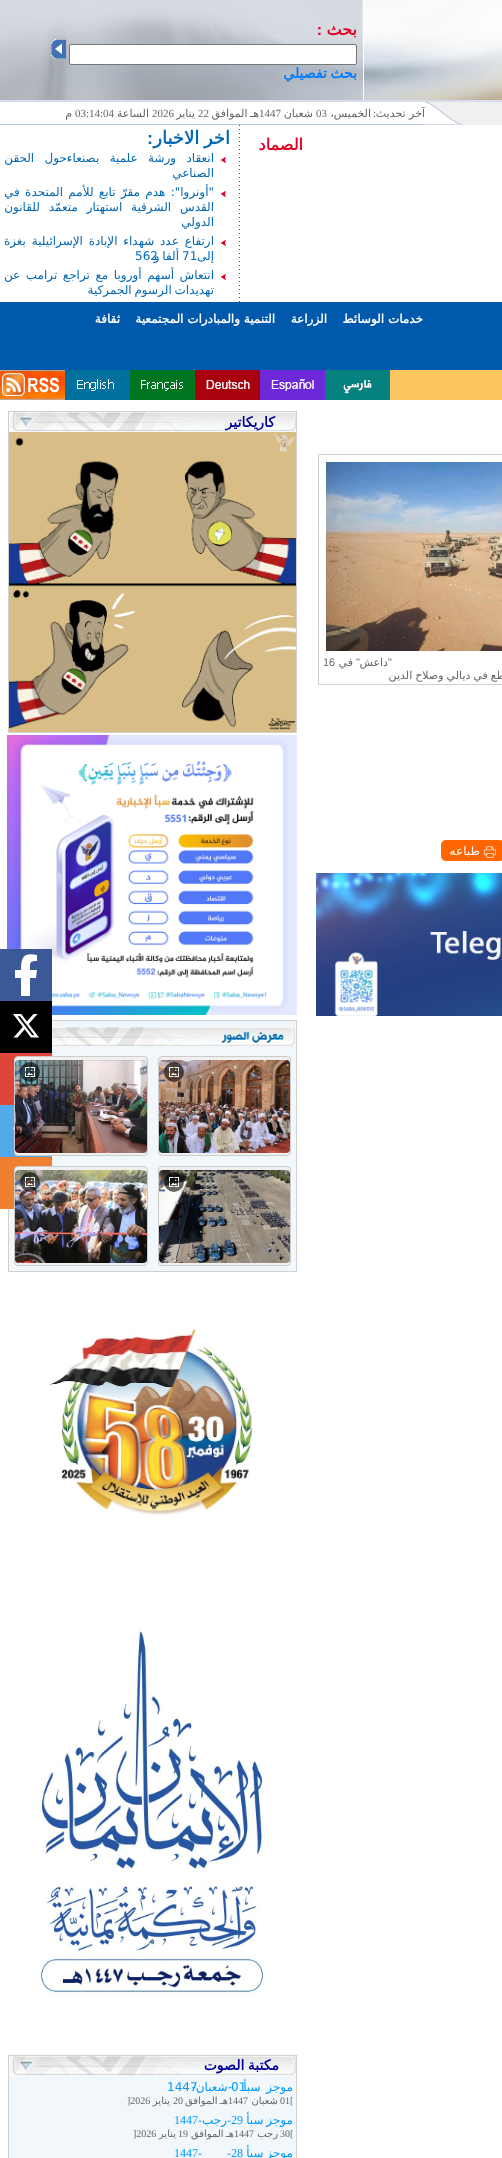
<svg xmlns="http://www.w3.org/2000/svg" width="502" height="2158">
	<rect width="100%" height="100%" fill="#FFFFFF" />
	<image x="364" y="0" width="138" height="100" href="assets/img1.png" />
	<image x="0" y="0" width="363" height="100" href="assets/img2.png" />
	<text x="357" y="35" font-family="DejaVu Sans" font-size="16" font-weight="700" direction="rtl" fill="#DF0023">بحث</text>
	<text x="322" y="35" font-family="Liberation Sans" font-size="16" font-weight="700" direction="rtl" fill="#DF0023">:</text>
	<rect x="69.5" y="44.5" width="287" height="20" rx="1.5" fill="#FFFFFF" stroke="#767676" />
	<image x="51" y="39" width="15" height="20" href="assets/img3.png" />
	<text x="357" y="78" word-spacing="-1" font-family="DejaVu Sans" font-size="14" font-weight="700" direction="rtl" fill="#007BFF">بحث تفصيلي</text>
	<rect x="0" y="100" width="502" height="2" fill="#D7DEEA" />
	<rect x="464" y="102" width="38" height="23" fill="#F0F0F0" />
	<image x="425" y="102" width="39" height="23" href="assets/img4.png" />
	<rect x="0" y="124" width="425" height="1" fill="#B2C2E0" />
	<text x="425" y="117" font-family="DejaVu Sans" font-size="11" direction="rtl" fill="#666666">آخر تحديث</text>
	<text x="376" y="117" font-family="Liberation Serif" font-size="11" direction="rtl" fill="#666666">:</text>
	<text x="371" y="117" font-family="DejaVu Sans" font-size="11" direction="rtl" fill="#666666">الخميس،</text>
	<text x="316" y="117" font-family="Liberation Serif" font-size="11" fill="#666666">03</text>
	<text x="313" y="117" font-family="DejaVu Sans" font-size="11" direction="rtl" fill="#666666">شعبان</text>
	<text x="259" y="117" font-family="Liberation Serif" font-size="11" fill="#666666">1447</text>
	<text x="259" y="117" word-spacing="-1" font-family="DejaVu Sans" font-size="11" direction="rtl" fill="#666666">هـ الموافق</text>
	<text x="198" y="117" font-family="Liberation Serif" font-size="11" fill="#666666">22</text>
	<text x="195" y="117" font-family="DejaVu Sans" font-size="11" direction="rtl" fill="#666666">يناير</text>
	<text x="152" y="117" font-family="Liberation Serif" font-size="11" fill="#666666">2026</text>
	<text x="149" y="117" font-family="DejaVu Sans" font-size="11" direction="rtl" fill="#666666">الساعة</text>
	<text x="75" y="117" font-family="Liberation Serif" font-size="11" fill="#666666">03:14:04</text>
	<text x="72" y="117" font-family="DejaVu Sans" font-size="11" direction="rtl" fill="#666666">م</text>
	<text x="303" y="150" font-family="DejaVu Sans" font-size="16" font-weight="700" direction="rtl" fill="#DF0023">الصماد</text>
	<image x="239" y="125" width="1" height="177" href="assets/img5.png" />
	<text x="230" y="144" word-spacing="-1" font-family="DejaVu Sans" font-size="18" font-weight="700" direction="rtl" fill="#0568B2">اخر الاخبار</text>
	<text x="153" y="144" font-family="Liberation Sans" font-size="18" font-weight="700" direction="rtl" fill="#0568B2">:</text>
	<image x="220" y="156" width="6" height="8" href="assets/img6.png" />
	<g font-family="DejaVu Sans" font-size="12" direction="rtl" fill="#0568B2">
		<text x="214" y="162" word-spacing="6.5">انعقاد ورشة علمية بصنعاءحول الحقن</text>
		<text x="214" y="177">الصناعي</text>
	</g>
	<image x="220" y="190" width="6" height="8" href="assets/img6.png" />
	<g font-family="DejaVu Sans" font-size="12" direction="rtl" fill="#0568B2">
		<text x="214" y="196" word-spacing="1.5">"أونروا": هدم مقرّ تابع للأمم المتحدة في</text>
		<text x="214" y="211" word-spacing="5">القدس الشرقية استهتار متعمّد للقانون</text>
		<text x="214" y="226">الدولي</text>
	</g>
	<image x="220" y="239" width="6" height="8" href="assets/img6.png" />
	<g font-family="DejaVu Sans" font-size="12" direction="rtl" fill="#0568B2">
		<text x="214" y="245" word-spacing="2">ارتفاع عدد شهداء الإبادة الإسرائيلية بغزة</text>
		<text x="214" y="260">إلى</text>
	</g>
	<g font-family="DejaVu Sans" font-size="12" fill="#0568B2">
		<text x="182" y="260">71</text>
		<text x="135" y="260">562</text>
	</g>
	<text x="179" y="260" word-spacing="-1" font-family="DejaVu Sans" font-size="12" direction="rtl" fill="#0568B2">ألفا و</text>
	<image x="220" y="273" width="6" height="8" href="assets/img6.png" />
	<g font-family="DejaVu Sans" font-size="12" direction="rtl" fill="#0568B2">
		<text x="214" y="279" word-spacing="1.75">انتعاش أسهم أوروبا مع تراجع ترامب عن</text>
		<text x="214" y="294" word-spacing="-1">تهديدات الرسوم الجمركية</text>
	</g>
	<rect x="0" y="302" width="502" height="68" fill="#0059AB" />
	<g font-family="DejaVu Sans" font-size="12" font-weight="700" direction="rtl" fill="#FFFFFF">
		<text x="423" y="323">خدمات الوسائط</text>
		<text x="327" y="323">الزراعة</text>
		<text x="275" y="323">التنمية والمبادرات المجتمعية</text>
		<text x="120" y="323">ثقافة</text>
	</g>
	<rect x="325" y="370" width="177" height="30" fill="#FBC660" />
	<image x="325" y="370" width="65" height="30" href="assets/img7.png" />
	<image x="260" y="370" width="65" height="30" href="assets/img8.png" />
	<image x="195" y="370" width="65" height="30" href="assets/img9.png" />
	<image x="130" y="370" width="65" height="30" href="assets/img10.png" />
	<image x="65" y="370" width="65" height="30" href="assets/img11.png" />
	<image x="0" y="370" width="65" height="30" href="assets/img12.png" />
	<rect x="318.5" y="454.5" width="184" height="230" fill="none" stroke="#D0D0D0" />
	<image x="326" y="462" width="176" height="189" href="assets/img13.png" />
	<text x="392" y="666" font-family="Liberation Sans" font-size="11" direction="rtl" fill="#666666">"</text>
	<text x="388" y="666" font-family="DejaVu Sans" font-size="11" direction="rtl" fill="#666666">داعش</text>
	<text x="360" y="666" font-family="Liberation Sans" font-size="11" direction="rtl" fill="#666666">"</text>
	<text x="353" y="666" font-family="DejaVu Sans" font-size="11" direction="rtl" fill="#666666">في</text>
	<text x="323" y="666" font-family="Liberation Sans" font-size="11" fill="#666666">16</text>
	<text x="514" y="679" word-spacing="-0.5" font-family="DejaVu Sans" font-size="11" direction="rtl" fill="#666666">قاطع في ديالي وصلاح الدين</text>
	<rect x="441" y="840" width="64" height="21" rx="5" fill="#FF6600" />
	<image x="484" y="846" width="12" height="12" href="assets/img14.png" />
	<text x="480" y="855" font-family="DejaVu Sans" font-size="12" direction="rtl" fill="#FFFFFF">طباعه</text>
	<image x="316" y="873" width="186" height="143" href="assets/img15.png" />
	<rect x="9" y="412" width="287" height="20" fill="#F1F7FA" />
	<rect x="8.5" y="411.5" width="288" height="321" fill="none" stroke="#D0D0D0" />
	<image x="12" y="412" width="284" height="19" href="assets/img16.png" />
	<text x="275" y="427" font-family="DejaVu Sans" font-size="14" font-weight="700" direction="rtl" fill="#000099">كاريكاتير</text>
	<image x="9" y="432" width="287" height="300" href="assets/img17.png" />
	<image x="7" y="735" width="290" height="280" href="assets/img18.png" />
	<rect x="8.5" y="1020.5" width="288" height="251" fill="#F1F7FA" stroke="#D0D0D0" />
	<image x="52" y="1027" width="243" height="19" href="assets/img19.png" />
	<rect x="158.5" y="1056.5" width="132" height="99" rx="3.5" fill="#F0F0F0" stroke="#CCCCCC" />
	<image x="159" y="1060" width="131" height="93" href="assets/img20.png" />
	<circle cx="174" cy="1072" r="10" fill="#000000" fill-opacity="0.6" />
	<image x="169" y="1067" width="10" height="10" href="assets/img21.png" />
	<rect x="0" y="1053" width="52" height="52" fill="#DE463B" />
	<rect x="0" y="1105" width="52" height="52" fill="#54A9EB" />
	<rect x="14.5" y="1056.5" width="133" height="99" rx="3.5" fill="#F0F0F0" stroke="#CCCCCC" />
	<image x="15" y="1060" width="132" height="93" href="assets/img22.png" />
	<circle cx="30" cy="1072" r="10" fill="#000000" fill-opacity="0.6" />
	<image x="25" y="1067" width="10" height="10" href="assets/img23.png" />
	<rect x="158.5" y="1166.5" width="132" height="99" rx="3.5" fill="#F0F0F0" stroke="#CCCCCC" />
	<image x="159" y="1170" width="131" height="93" href="assets/img24.png" />
	<circle cx="174" cy="1182" r="10" fill="#000000" fill-opacity="0.6" />
	<image x="169" y="1177" width="10" height="10" href="assets/img25.png" />
	<rect x="0" y="1157" width="52" height="52" fill="#EE802F" />
	<rect x="14.5" y="1166.5" width="133" height="99" rx="3.5" fill="#F0F0F0" stroke="#CCCCCC" />
	<image x="15" y="1170" width="132" height="93" href="assets/img26.png" />
	<circle cx="30" cy="1182" r="10" fill="#000000" fill-opacity="0.6" />
	<image x="25" y="1177" width="10" height="10" href="assets/img27.png" />
	<image x="49" y="1328" width="204" height="188" href="assets/img28.png" />
	<image x="40" y="1627" width="224" height="369" href="assets/img29.png" />
	<rect x="8.5" y="2055.5" width="288" height="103" fill="#F1F7FA" stroke="#D0D0D0" />
	<image x="12" y="2056" width="284" height="19" href="assets/img16.png" />
	<text x="279" y="2070" word-spacing="-1" font-family="DejaVu Sans" font-size="14" font-weight="700" direction="rtl" fill="#000099">مكتبة الصوت</text>
	<text x="231" y="2091" font-family="DejaVu Sans" font-size="12" fill="#0099FF">01</text>
	<text x="293" y="2091" word-spacing="2" font-family="DejaVu Sans" font-size="12" direction="rtl" fill="#0099FF">موجز سبأ</text>
	<text x="167" y="2091" font-family="DejaVu Sans" font-size="12" fill="#0099FF">1447</text>
	<text x="232" y="2091" font-family="DejaVu Sans" font-size="12" direction="rtl" fill="#0099FF">-شعبان-</text>
	<text x="280" y="2104" font-family="Liberation Serif" font-size="10" fill="#666666">01[</text>
	<text x="278" y="2104" font-family="DejaVu Sans" font-size="10" direction="rtl" fill="#666666">شعبان</text>
	<text x="228" y="2104" font-family="Liberation Serif" font-size="10" fill="#666666">1447</text>
	<text x="228" y="2104" word-spacing="-1" font-family="DejaVu Sans" font-size="10" direction="rtl" fill="#666666">هـ الموافق</text>
	<text x="173" y="2104" font-family="Liberation Serif" font-size="10" fill="#666666">20</text>
	<text x="170" y="2104" font-family="DejaVu Sans" font-size="10" direction="rtl" fill="#666666">يناير</text>
	<text x="127" y="2104" font-family="Liberation Serif" font-size="10" fill="#666666">]2026</text>
	<text x="293" y="2124" word-spacing="-1" font-family="DejaVu Sans" font-size="12" direction="rtl" fill="#0099FF">موجز سبأ</text>
	<text x="231" y="2124" font-family="Liberation Serif" font-size="12" fill="#0099FF">29</text>
	<text x="231" y="2124" font-family="Liberation Serif" font-size="12" direction="rtl" fill="#0099FF">-</text>
	<text x="227" y="2124" font-family="DejaVu Sans" font-size="12" direction="rtl" fill="#0099FF">رجب</text>
	<text x="174" y="2124" font-family="Liberation Serif" font-size="12" fill="#0099FF">1447</text>
	<text x="202" y="2124" font-family="Liberation Serif" font-size="12" direction="rtl" fill="#0099FF">-</text>
	<text x="280" y="2137" font-family="Liberation Serif" font-size="10" fill="#666666">30[</text>
	<text x="278" y="2137" font-family="DejaVu Sans" font-size="10" direction="rtl" fill="#666666">رجب</text>
	<text x="234" y="2137" font-family="Liberation Serif" font-size="10" fill="#666666">1447</text>
	<text x="234" y="2137" word-spacing="-1" font-family="DejaVu Sans" font-size="10" direction="rtl" fill="#666666">هـ الموافق</text>
	<text x="178" y="2137" font-family="Liberation Serif" font-size="10" fill="#666666">19</text>
	<text x="176" y="2137" font-family="DejaVu Sans" font-size="10" direction="rtl" fill="#666666">يناير</text>
	<text x="133" y="2137" font-family="Liberation Serif" font-size="10" fill="#666666">]2026</text>
	<text x="293" y="2157" word-spacing="-1" font-family="DejaVu Sans" font-size="12" direction="rtl" fill="#0099FF">موجز سبأ</text>
	<text x="231" y="2157" font-family="Liberation Serif" font-size="12" fill="#0099FF">28</text>
	<text x="231" y="2157" font-family="Liberation Serif" font-size="12" direction="rtl" fill="#0099FF">-</text>
	<text x="174" y="2157" font-family="Liberation Serif" font-size="12" fill="#0099FF">1447</text>
	<text x="202" y="2157" font-family="Liberation Serif" font-size="12" direction="rtl" fill="#0099FF">-</text>
	<rect x="0" y="949" width="52" height="52" fill="#3B5998" />
	<path d="M36 978L37 970H30C30 963 29 961 37 961V955C23 952 21 958 21 970H15V978H21V996H30V978Z" fill="#FFFFFF" />
	<rect x="0" y="1001" width="52" height="52" fill="#000000" />
	<image x="13" y="1014" width="26" height="24" href="assets/img30.png" />
	<image x="13" y="1127" width="1" height="3" href="assets/img31.png" />
</svg>
